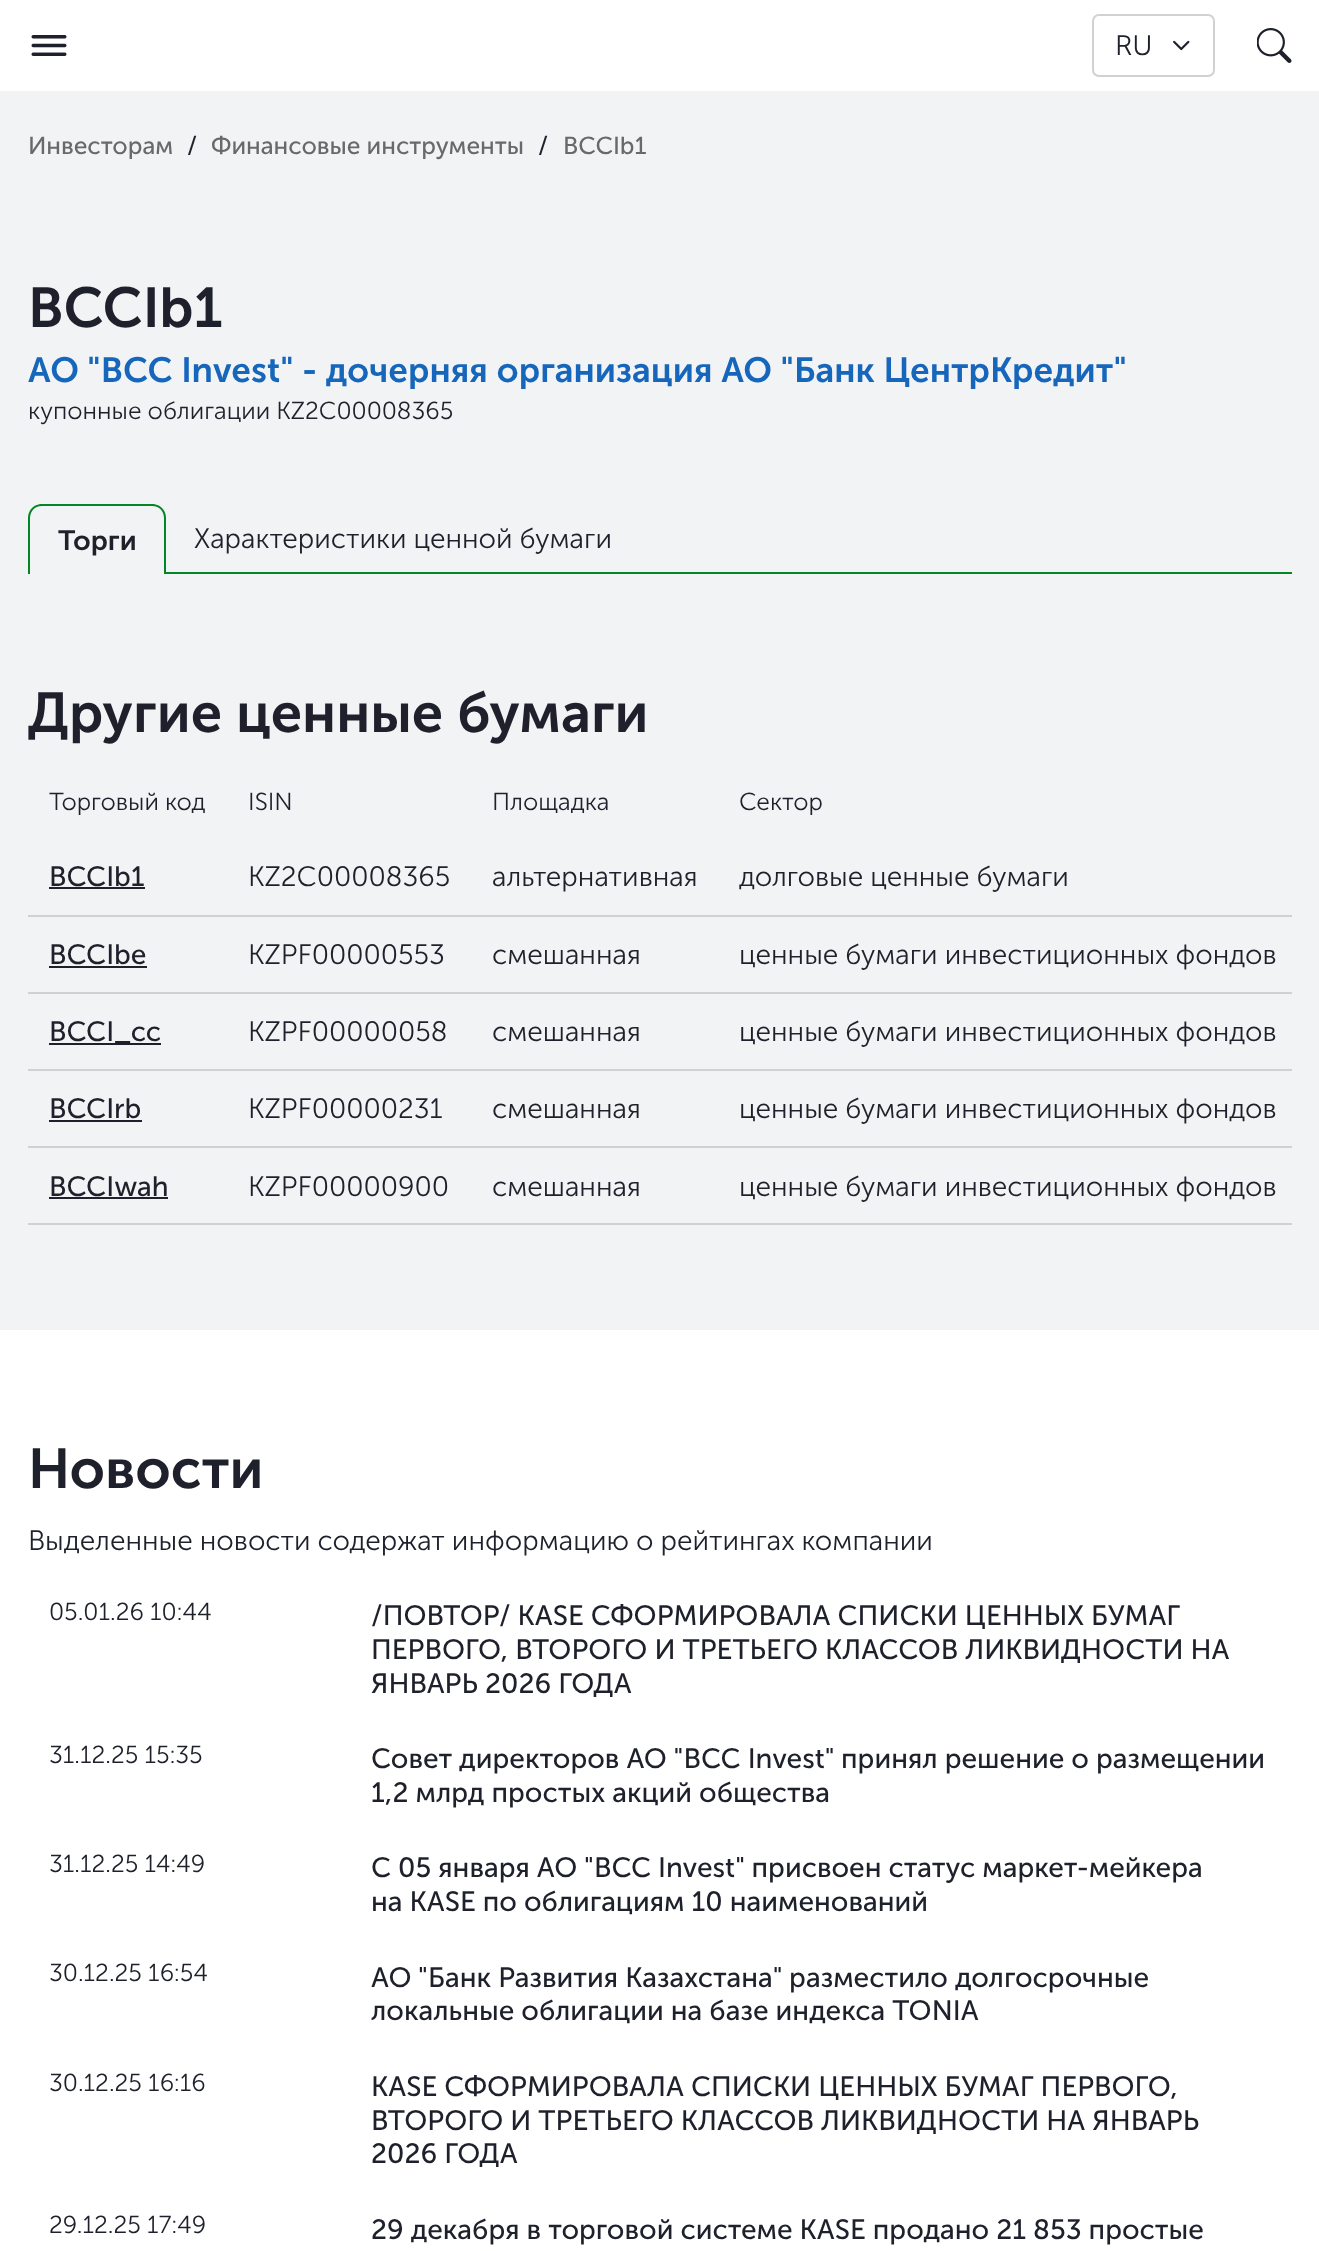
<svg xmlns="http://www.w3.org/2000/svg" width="1319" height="2251">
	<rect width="100%" height="100%" fill="#FFFFFF" />
	<image x="31" y="35" width="36" height="21" href="assets/img1.png" />
	<rect x="1093" y="15" width="121" height="61" rx="6" fill="none" stroke="#D1D1D1" stroke-width="2" />
	<text x="1115" y="55" font-family="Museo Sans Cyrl" font-size="28" font-weight="300" fill="#1E212B">RU</text>
	<image x="1173" y="40" width="17" height="11" href="assets/img2.png" />
	<image x="1257" y="28" width="35" height="35" href="assets/img3.png" />
	<rect x="0" y="91" width="1319" height="1239" fill="#F1F3F4" />
	<text x="28" y="154" font-family="Museo Sans Cyrl" font-size="24.5" fill="#696969">Инвесторам</text>
	<text x="187" y="154" font-family="Museo Sans Cyrl" font-size="24.5" fill="#1E212B">/</text>
	<text x="211" y="154" font-family="Museo Sans Cyrl" font-size="24.5" fill="#696969">Финансовые инструменты</text>
	<text x="538" y="154" font-family="Museo Sans Cyrl" font-size="24.5" fill="#1E212B">/</text>
	<text x="563" y="154" font-family="Museo Sans Cyrl" font-size="24.5" fill="#696969">BCCIb1</text>
	<text x="28" y="327" font-family="Museo Sans Cyrl" font-size="56" font-weight="600" fill="#1E212B">BCCIb1</text>
	<text x="28" y="382" font-family="Museo Sans Cyrl" font-size="35" font-weight="600" fill="#1666BC">АО "BCC Invest" - дочерняя организация АО "Банк ЦентрКредит"</text>
	<text x="28" y="419" font-family="Museo Sans Cyrl" font-size="24.5" font-weight="300" fill="#1E212B">купонные облигации KZ2C00008365</text>
	<path d="M42 504H152C160 504 166 510 166 518V574H28V518C28 510 34 504 42 504ZM42 506H152C159 506 164 511 164 518V574H30V518C30 511 35 506 42 506Z" fill="#038726" fill-rule="evenodd" />
	<text x="58" y="550" font-family="Museo Sans Cyrl" font-size="28" font-weight="600" fill="#1E212B">Торги</text>
	<rect x="166" y="572" width="1126" height="2" fill="#038726" />
	<text x="194" y="548" font-family="Museo Sans Cyrl" font-size="28" font-weight="300" fill="#1E212B">Характеристики ценной бумаги</text>
	<text x="28" y="732" font-family="Museo Sans Cyrl" font-size="56" font-weight="600" fill="#1E212B">Другие ценные бумаги</text>
	<g font-family="Museo Sans Cyrl" font-size="24.5" font-weight="300" fill="#1E212B">
		<text x="49" y="810">Торговый код</text>
		<text x="248" y="810">ISIN</text>
		<text x="492" y="810">Площадка</text>
		<text x="739" y="810">Сектор</text>
	</g>
	<rect x="28" y="915" width="1264" height="2" fill="#D1D1D1" />
	<text x="49" y="886" font-family="Museo Sans Cyrl" font-size="28" fill="#1E212B">BCCIb1</text>
	<rect x="49" y="887" width="96" height="2" fill="#1E212B" />
	<g font-family="Museo Sans Cyrl" font-size="28" font-weight="300" fill="#1E212B">
		<text x="248" y="886">KZ2C00008365</text>
		<text x="492" y="886">альтернативная</text>
		<text x="739" y="886">долговые ценные бумаги</text>
	</g>
	<rect x="28" y="992" width="1264" height="2" fill="#D1D1D1" />
	<text x="49" y="964" font-family="Museo Sans Cyrl" font-size="28" fill="#1E212B">BCCIbe</text>
	<rect x="49" y="966" width="98" height="2" fill="#1E212B" />
	<g font-family="Museo Sans Cyrl" font-size="28" font-weight="300" fill="#1E212B">
		<text x="248" y="964">KZPF00000553</text>
		<text x="492" y="964">смешанная</text>
		<text x="739" y="964">ценные бумаги инвестиционных фондов</text>
	</g>
	<rect x="28" y="1069" width="1264" height="2" fill="#D1D1D1" />
	<rect x="49" y="1043" width="112" height="2" fill="#1E212B" />
	<text x="49" y="1041" font-family="Museo Sans Cyrl" font-size="28" fill="#1E212B">BCCI_cc</text>
	<g font-family="Museo Sans Cyrl" font-size="28" font-weight="300" fill="#1E212B">
		<text x="248" y="1041">KZPF00000058</text>
		<text x="492" y="1041">смешанная</text>
		<text x="739" y="1041">ценные бумаги инвестиционных фондов</text>
	</g>
	<rect x="28" y="1146" width="1264" height="2" fill="#D1D1D1" />
	<text x="49" y="1118" font-family="Museo Sans Cyrl" font-size="28" fill="#1E212B">BCCIrb</text>
	<rect x="49" y="1120" width="93" height="2" fill="#1E212B" />
	<g font-family="Museo Sans Cyrl" font-size="28" font-weight="300" fill="#1E212B">
		<text x="248" y="1118">KZPF00000231</text>
		<text x="492" y="1118">смешанная</text>
		<text x="739" y="1118">ценные бумаги инвестиционных фондов</text>
	</g>
	<rect x="28" y="1223" width="1264" height="2" fill="#D1D1D1" />
	<text x="49" y="1196" font-family="Museo Sans Cyrl" font-size="28" fill="#1E212B">BCCIwah</text>
	<rect x="49" y="1197" width="119" height="2" fill="#1E212B" />
	<g font-family="Museo Sans Cyrl" font-size="28" font-weight="300" fill="#1E212B">
		<text x="248" y="1196">KZPF00000900</text>
		<text x="492" y="1196">смешанная</text>
		<text x="739" y="1196">ценные бумаги инвестиционных фондов</text>
	</g>
	<text x="28" y="1488" font-family="Museo Sans Cyrl" font-size="56" font-weight="600" fill="#1E212B">Новости</text>
	<text x="28" y="1550" font-family="Museo Sans Cyrl" font-size="28" font-weight="300" fill="#1E212B">Выделенные новости содержат информацию о рейтингах компании</text>
	<text x="49" y="1620" font-family="Museo Sans Cyrl" font-size="24.5" font-weight="300" fill="#1E212B">05.01.26 10:44</text>
	<g font-family="Museo Sans Cyrl" font-size="28" fill="#1E212B">
		<text x="371" y="1625">/ПОВТОР/ KASE СФОРМИРОВАЛА СПИСКИ ЦЕННЫХ БУМАГ</text>
		<text x="371" y="1659">ПЕРВОГО, ВТОРОГО И ТРЕТЬЕГО КЛАССОВ ЛИКВИДНОСТИ НА</text>
		<text x="371" y="1693">ЯНВАРЬ 2026 ГОДА</text>
	</g>
	<text x="49" y="1763" font-family="Museo Sans Cyrl" font-size="24.5" font-weight="300" fill="#1E212B">31.12.25 15:35</text>
	<g font-family="Museo Sans Cyrl" font-size="28" fill="#1E212B">
		<text x="371" y="1768">Совет директоров АО "BCC Invest" принял решение о размещении</text>
		<text x="371" y="1802">1,2 млрд простых акций общества</text>
	</g>
	<text x="49" y="1872" font-family="Museo Sans Cyrl" font-size="24.5" font-weight="300" fill="#1E212B">31.12.25 14:49</text>
	<g font-family="Museo Sans Cyrl" font-size="28" fill="#1E212B">
		<text x="371" y="1877">С 05 января АО "BCC Invest" присвоен статус маркет-мейкера</text>
		<text x="371" y="1911">на KASE по облигациям 10 наименований</text>
	</g>
	<text x="49" y="1981" font-family="Museo Sans Cyrl" font-size="24.5" font-weight="300" fill="#1E212B">30.12.25 16:54</text>
	<g font-family="Museo Sans Cyrl" font-size="28" fill="#1E212B">
		<text x="371" y="1987">АО "Банк Развития Казахстана" разместило долгосрочные</text>
		<text x="371" y="2020">локальные облигации на базе индекса TONIA</text>
	</g>
	<text x="49" y="2091" font-family="Museo Sans Cyrl" font-size="24.5" font-weight="300" fill="#1E212B">30.12.25 16:16</text>
	<g font-family="Museo Sans Cyrl" font-size="28" fill="#1E212B">
		<text x="371" y="2096">KASE СФОРМИРОВАЛА СПИСКИ ЦЕННЫХ БУМАГ ПЕРВОГО,</text>
		<text x="371" y="2130">ВТОРОГО И ТРЕТЬЕГО КЛАССОВ ЛИКВИДНОСТИ НА ЯНВАРЬ</text>
		<text x="371" y="2163">2026 ГОДА</text>
	</g>
	<text x="49" y="2233" font-family="Museo Sans Cyrl" font-size="24.5" font-weight="300" fill="#1E212B">29.12.25 17:49</text>
	<text x="371" y="2239" font-family="Museo Sans Cyrl" font-size="28" fill="#1E212B">29 декабря в торговой системе KASE продано 21 853 простые</text>
</svg>
